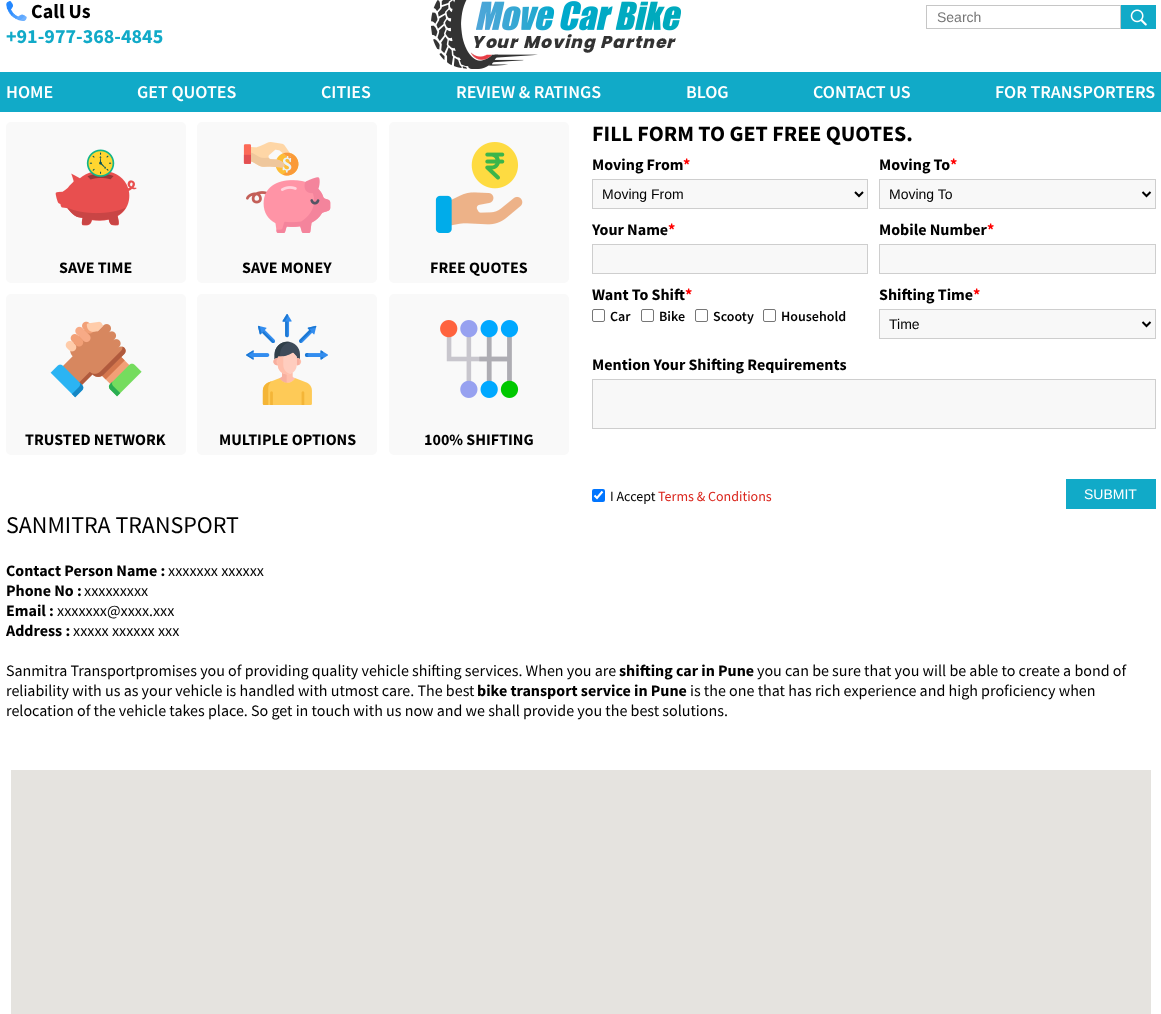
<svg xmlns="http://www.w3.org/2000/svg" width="1161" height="1014">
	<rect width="100%" height="100%" fill="#FFFFFF" />
	<image x="6" y="1" width="21" height="20" href="assets/img1.png" />
	<text x="31" y="18" font-family="Source Sans Pro" font-size="20" font-weight="700" fill="#000000">Call Us</text>
	<text x="6" y="43" font-family="Source Sans Pro" font-size="20" font-weight="700" fill="#11AAC8">+91-977-368-4845</text>
	<image x="431" y="0" width="250" height="69" href="assets/img2.png" />
	<rect x="926.5" y="5.5" width="194" height="23" fill="none" stroke="#C6C6C6" />
	<text x="937" y="22" font-family="Liberation Sans" font-size="14" fill="#757575">Search</text>
	<rect x="1121" y="5" width="35" height="24" fill="#11AAC8" />
	<image x="1130" y="9" width="17" height="17" href="assets/img3.png" />
	<rect x="0" y="72" width="1161" height="40" fill="#11AAC8" />
	<g font-family="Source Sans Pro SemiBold" font-size="18" font-weight="600" fill="#FFFFFF">
		<text x="6" y="98">HOME</text>
		<text x="137" y="98">GET QUOTES</text>
		<text x="321" y="98">CITIES</text>
		<text x="456" y="98">REVIEW &amp; RATINGS</text>
		<text x="686" y="98">BLOG</text>
		<text x="813" y="98">CONTACT US</text>
		<text x="995" y="98">FOR TRANSPORTERS</text>
	</g>
	<rect x="6" y="122" width="180" height="161" rx="5" fill="#F9F9F9" />
	<image x="55" y="149" width="82" height="77" href="assets/img4.png" />
	<text x="59" y="273" font-family="Source Sans Pro" font-size="16" font-weight="700" fill="#000000">SAVE TIME</text>
	<rect x="197" y="122" width="180" height="161" rx="5" fill="#F9F9F9" />
	<image x="243" y="142" width="88" height="91" href="assets/img5.png" />
	<text x="242" y="273" font-family="Source Sans Pro" font-size="16" font-weight="700" fill="#000000">SAVE MONEY</text>
	<rect x="389" y="122" width="180" height="161" rx="5" fill="#F9F9F9" />
	<image x="435" y="142" width="88" height="91" href="assets/img6.png" />
	<text x="430" y="273" font-family="Source Sans Pro" font-size="16" font-weight="700" fill="#000000">FREE QUOTES</text>
	<rect x="6" y="294" width="180" height="161" rx="5" fill="#F9F9F9" />
	<image x="50" y="321" width="92" height="77" href="assets/img7.png" />
	<text x="25" y="445" font-family="Source Sans Pro" font-size="16" font-weight="700" fill="#000000">TRUSTED NETWORK</text>
	<rect x="197" y="294" width="180" height="161" rx="5" fill="#F9F9F9" />
	<image x="246" y="314" width="82" height="91" href="assets/img8.png" />
	<text x="219" y="445" font-family="Source Sans Pro" font-size="16" font-weight="700" fill="#000000">MULTIPLE OPTIONS</text>
	<rect x="389" y="294" width="180" height="161" rx="5" fill="#F9F9F9" />
	<image x="440" y="320" width="79" height="78" href="assets/img9.png" />
	<text x="424" y="445" font-family="Source Sans Pro" font-size="16" font-weight="700" fill="#000000">100% SHIFTING</text>
	<text x="592" y="141" font-family="Source Sans Pro" font-size="22" font-weight="700" fill="#000000">FILL FORM TO GET FREE QUOTES.</text>
	<text x="592" y="170" font-family="Source Sans Pro" font-size="16" font-weight="700" fill="#000000">Moving From</text>
	<text x="683" y="170" font-family="Source Sans Pro" font-size="16" font-weight="700" fill="#FF0000">*</text>
	<rect x="592.5" y="179.5" width="275" height="29" fill="#F8F8F8" stroke="#CECECE" />
	<path d="M855 192L859 196L863 192" fill="none" stroke="#000000" stroke-width="2" />
	<text x="602" y="199" font-family="Liberation Sans" font-size="14" fill="#000000">Moving From</text>
	<text x="879" y="170" font-family="Source Sans Pro" font-size="16" font-weight="700" fill="#000000">Moving To</text>
	<text x="950" y="170" font-family="Source Sans Pro" font-size="16" font-weight="700" fill="#FF0000">*</text>
	<rect x="879.5" y="179.5" width="276" height="29" fill="#F8F8F8" stroke="#CECECE" />
	<path d="M1142.5 192L1146.5 196L1150.5 192" fill="none" stroke="#000000" stroke-width="2" />
	<text x="889" y="199" font-family="Liberation Sans" font-size="14" fill="#000000">Moving To</text>
	<text x="592" y="235" font-family="Source Sans Pro" font-size="16" font-weight="700" fill="#000000">Your Name</text>
	<text x="668" y="235" font-family="Source Sans Pro" font-size="16" font-weight="700" fill="#FF0000">*</text>
	<rect x="592.5" y="244.5" width="275" height="29" fill="#F8F8F8" stroke="#CECECE" />
	<text x="879" y="235" font-family="Source Sans Pro" font-size="16" font-weight="700" fill="#000000">Mobile Number</text>
	<text x="987" y="235" font-family="Source Sans Pro" font-size="16" font-weight="700" fill="#FF0000">*</text>
	<rect x="879.5" y="244.5" width="276" height="29" fill="#F8F8F8" stroke="#CECECE" />
	<text x="592" y="300" font-family="Source Sans Pro" font-size="16" font-weight="700" fill="#000000">Want To Shift</text>
	<text x="685" y="300" font-family="Source Sans Pro" font-size="16" font-weight="700" fill="#FF0000">*</text>
	<rect x="592.5" y="309.5" width="12" height="12" rx="1.5" fill="none" stroke="#767676" />
	<text x="610" y="321" font-family="Source Sans Pro SemiBold" font-size="14" font-weight="600" fill="#000000">Car</text>
	<rect x="641.5" y="309.5" width="12" height="12" rx="1.5" fill="none" stroke="#767676" />
	<text x="659" y="321" font-family="Source Sans Pro SemiBold" font-size="14" font-weight="600" fill="#000000">Bike</text>
	<rect x="695.5" y="309.5" width="12" height="12" rx="1.5" fill="none" stroke="#767676" />
	<text x="713" y="321" font-family="Source Sans Pro SemiBold" font-size="14" font-weight="600" fill="#000000">Scooty</text>
	<rect x="763.5" y="309.5" width="12" height="12" rx="1.5" fill="none" stroke="#767676" />
	<text x="781" y="321" font-family="Source Sans Pro SemiBold" font-size="14" font-weight="600" fill="#000000">Household</text>
	<text x="879" y="300" font-family="Source Sans Pro" font-size="16" font-weight="700" fill="#000000">Shifting Time</text>
	<text x="973" y="300" font-family="Source Sans Pro" font-size="16" font-weight="700" fill="#FF0000">*</text>
	<rect x="879.5" y="309.5" width="276" height="29" fill="#F8F8F8" stroke="#CECECE" />
	<path d="M1142.5 322L1146.5 326L1150.5 322" fill="none" stroke="#000000" stroke-width="2" />
	<text x="889" y="329" font-family="Liberation Sans" font-size="14" fill="#000000">Time</text>
	<text x="592" y="370" font-family="Source Sans Pro" font-size="16" font-weight="700" fill="#000000">Mention Your Shifting Requirements</text>
	<rect x="592.5" y="379.5" width="563" height="49" fill="#F8F8F8" stroke="#CECECE" />
	<rect x="592" y="489" width="13" height="13" rx="2" fill="#0075FF" />
	<path d="M594.5 495.5L597 498L602.5 491.5" fill="none" stroke="#FFFFFF" stroke-width="2.1" />
	<text x="610" y="501" font-family="Source Sans Pro" font-size="14" fill="#000000">I Accept</text>
	<text x="658" y="501" font-family="Source Sans Pro" font-size="14" fill="#DA251C">Terms &amp; Conditions</text>
	<rect x="1066" y="479" width="90" height="30" fill="#11AAC8" />
	<text x="1084" y="499" font-family="Liberation Sans" font-size="14" fill="#FFFFFF">SUBMIT</text>
	<text x="6" y="533" font-family="Source Sans Pro" font-size="24" fill="#000000">SANMITRA TRANSPORT</text>
	<text x="6" y="576" font-family="Source Sans Pro" font-size="16" font-weight="700" fill="#000000">Contact Person Name :</text>
	<text x="168" y="576" font-family="Source Sans Pro" font-size="16" fill="#000000">xxxxxxx xxxxxx</text>
	<text x="6" y="596" font-family="Source Sans Pro" font-size="16" font-weight="700" fill="#000000">Phone No :</text>
	<text x="84" y="596" font-family="Source Sans Pro" font-size="16" fill="#000000">xxxxxxxxx</text>
	<text x="6" y="616" font-family="Source Sans Pro" font-size="16" font-weight="700" fill="#000000">Email :</text>
	<text x="57" y="616" font-family="Source Sans Pro" font-size="16" fill="#000000">xxxxxxx@xxxx.xxx</text>
	<text x="6" y="636" font-family="Source Sans Pro" font-size="16" font-weight="700" fill="#000000">Address :</text>
	<g font-family="Source Sans Pro" font-size="16" fill="#000000">
		<text x="73" y="636">xxxxx xxxxxx xxx</text>
		<text x="6" y="676">Sanmitra Transportpromises you of providing quality vehicle shifting services. When you are</text>
	</g>
	<text x="619" y="676" font-family="Source Sans Pro" font-size="16" font-weight="700" fill="#000000">shifting car in Pune</text>
	<g font-family="Source Sans Pro" font-size="16" fill="#000000">
		<text x="757" y="676">you can be sure that you will be able to create a bond of</text>
		<text x="6" y="696">reliability with us as your vehicle is handled with utmost care. The best</text>
	</g>
	<text x="477" y="696" font-family="Source Sans Pro" font-size="16" font-weight="700" fill="#000000">bike transport service in Pune</text>
	<g font-family="Source Sans Pro" font-size="16" fill="#000000">
		<text x="690" y="696">is the one that has rich experience and high proficiency when</text>
		<text x="6" y="716">relocation of the vehicle takes place. So get in touch with us now and we shall provide you the best solutions.</text>
	</g>
	<rect x="11" y="770" width="1140" height="244" fill="#E5E3DF" />
</svg>
